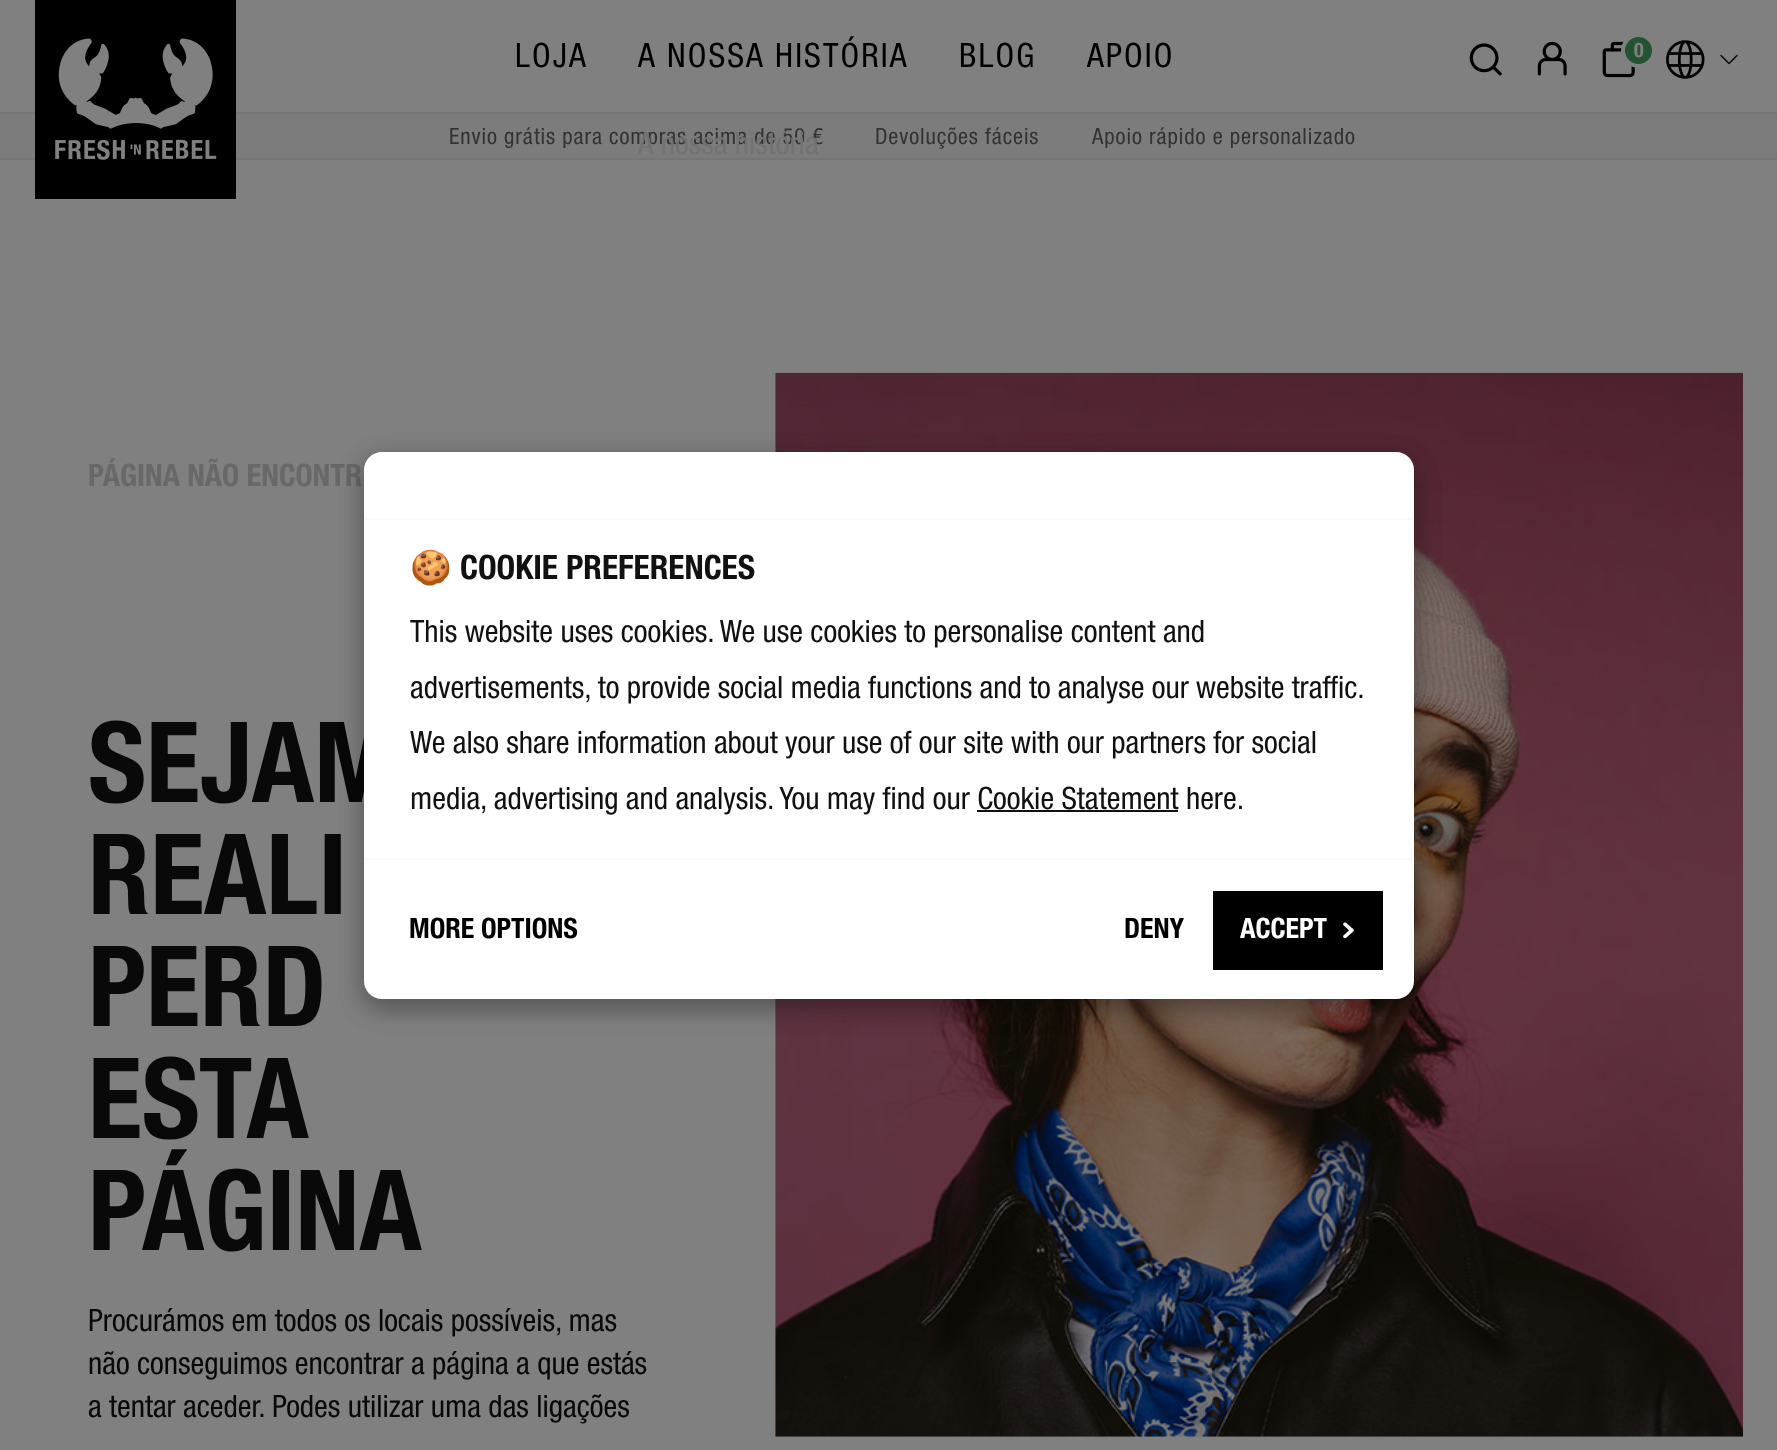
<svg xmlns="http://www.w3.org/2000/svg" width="1777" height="1450">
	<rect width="100%" height="100%" fill="#808080" />
	<rect x="0" y="112" width="1777" height="2" fill="#757575" />
	<rect x="0" y="114" width="1777" height="44" fill="#7C7C7C" />
	<rect x="0" y="158" width="1777" height="2" fill="#757575" />
	<image x="35" y="0" width="201" height="199" href="assets/img1.png" />
	<g font-family="'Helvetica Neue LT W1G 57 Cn'" font-size="33.5" letter-spacing="2.1" fill="#000000">
		<text x="515" y="67">LOJA</text>
		<text x="638" y="67">A NOSSA HISTÓRIA</text>
	</g>
	<text x="449" y="144" font-family="'Helvetica Neue LT W1G 57 Cn'" font-size="22.4" letter-spacing="0.9" fill="#333333">Envio grátis para compras acima de 50 €</text>
	<text x="638" y="154" font-family="'Helvetica Neue LT W1G 57 Cn'" font-size="30.8" fill="#727272">A nossa história</text>
	<g font-family="'Helvetica Neue LT W1G 57 Cn'" font-size="33.5" letter-spacing="2.1" fill="#000000">
		<text x="959" y="67">BLOG</text>
		<text x="1087" y="67">APOIO</text>
	</g>
	<image x="1469" y="43" width="33" height="33" href="assets/img2.png" />
	<image x="1537" y="41" width="30" height="35" href="assets/img3.png" />
	<image x="1602" y="41" width="33" height="37" href="assets/img4.png" />
	<circle cx="1638.5" cy="50.5" r="15.5" fill="#255233" stroke="#808080" stroke-width="4" />
	<text x="1634" y="57" font-family="'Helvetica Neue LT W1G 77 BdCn'" font-size="20" font-weight="700" fill="#808080">0</text>
	<image x="1666" y="40" width="39" height="39" href="assets/img5.png" />
	<image x="1720" y="54" width="18" height="11" href="assets/img6.png" />
	<g font-family="'Helvetica Neue LT W1G 57 Cn'" font-size="22.4" letter-spacing="0.9" fill="#333333">
		<text x="875" y="144">Devoluções fáceis</text>
		<text x="1092" y="144">Apoio rápido e personalizado</text>
	</g>
	<text x="88" y="486" font-family="'Helvetica Neue LT W1G 77 BdCn'" font-size="30.8" font-weight="700" fill="#686868">PÁGINA NÃO ENCONTR</text>
	<g font-family="'Helvetica Neue LT W1G 77 BdCn'" font-size="112" font-weight="700" fill="#090909">
		<text x="88" y="802">SEJAM</text>
		<text x="88" y="914">REALI</text>
		<text x="88" y="1026">PERD</text>
		<text x="88" y="1138">ESTA</text>
		<text x="88" y="1250">PÁGINA</text>
	</g>
	<g font-family="'Helvetica Neue LT W1G 57 Cn'" font-size="30.8" fill="#090909">
		<text x="88" y="1331">Procurámos em todos os locais possíveis, mas</text>
		<text x="88" y="1374">não conseguimos encontrar a página a que estás</text>
		<text x="88" y="1417">a tentar aceder. Podes utilizar uma das ligações</text>
	</g>
	<image x="775" y="372" width="968" height="1065" href="assets/img7.png" />
	<rect x="364" y="460" width="1050" height="548" rx="18" fill="#000000" fill-opacity="0.19" filter="blur(13px)" />
	<rect x="364" y="460" width="1050" height="548" rx="18" fill="#000000" fill-opacity="0.2" filter="blur(13px)" />
	<path d="M382 452H1396C1406 452 1414 460 1414 470V520H364V470C364 460 372 452 382 452Z" fill="#FFFFFF" />
	<rect x="364" y="518" width="1050" height="2" fill="#FAFAFA" />
	<rect x="364" y="520" width="1050" height="338" fill="#FFFFFF" />
	<text x="410" y="579" font-family="Noto Color Emoji" font-size="33.5" font-weight="700" fill="#111111">🍪</text>
	<text x="460" y="579" font-family="'Helvetica Neue LT W1G 77 BdCn'" font-size="33.5" font-weight="700" fill="#111111">COOKIE PREFERENCES</text>
	<g font-family="'Helvetica Neue LT W1G 57 Cn'" font-size="30.8" fill="#111111">
		<text x="410" y="642">This website uses cookies. We use cookies to personalise content and</text>
		<text x="410" y="698" word-spacing="-0.1">advertisements, to provide social media functions and to analyse our website traffic.</text>
		<text x="410" y="753">We also share information about your use of our site with our partners for social</text>
		<text x="410" y="809">media, advertising and analysis. You may find our Cookie Statement here.</text>
	</g>
	<rect x="977" y="810" width="201" height="2" fill="#111111" />
	<path d="M364 858H1414V981C1414 991 1406 999 1396 999H382C372 999 364 991 364 981Z" fill="#FFFFFF" />
	<rect x="364" y="858" width="1050" height="2" fill="#FAFAFA" />
	<g font-family="'Helvetica Neue LT W1G 77 BdCn'" font-size="28" font-weight="700" fill="#000000">
		<text x="409" y="938">MORE OPTIONS</text>
		<text x="1124" y="938">DENY</text>
	</g>
	<rect x="1213" y="891" width="170" height="79" fill="#000000" />
	<text x="1240" y="938" font-family="'Helvetica Neue LT W1G 77 BdCn'" font-size="28" font-weight="700" fill="#FFFFFF">ACCEPT</text>
	<image x="1343" y="922" width="11" height="16" href="assets/img8.png" />
</svg>
